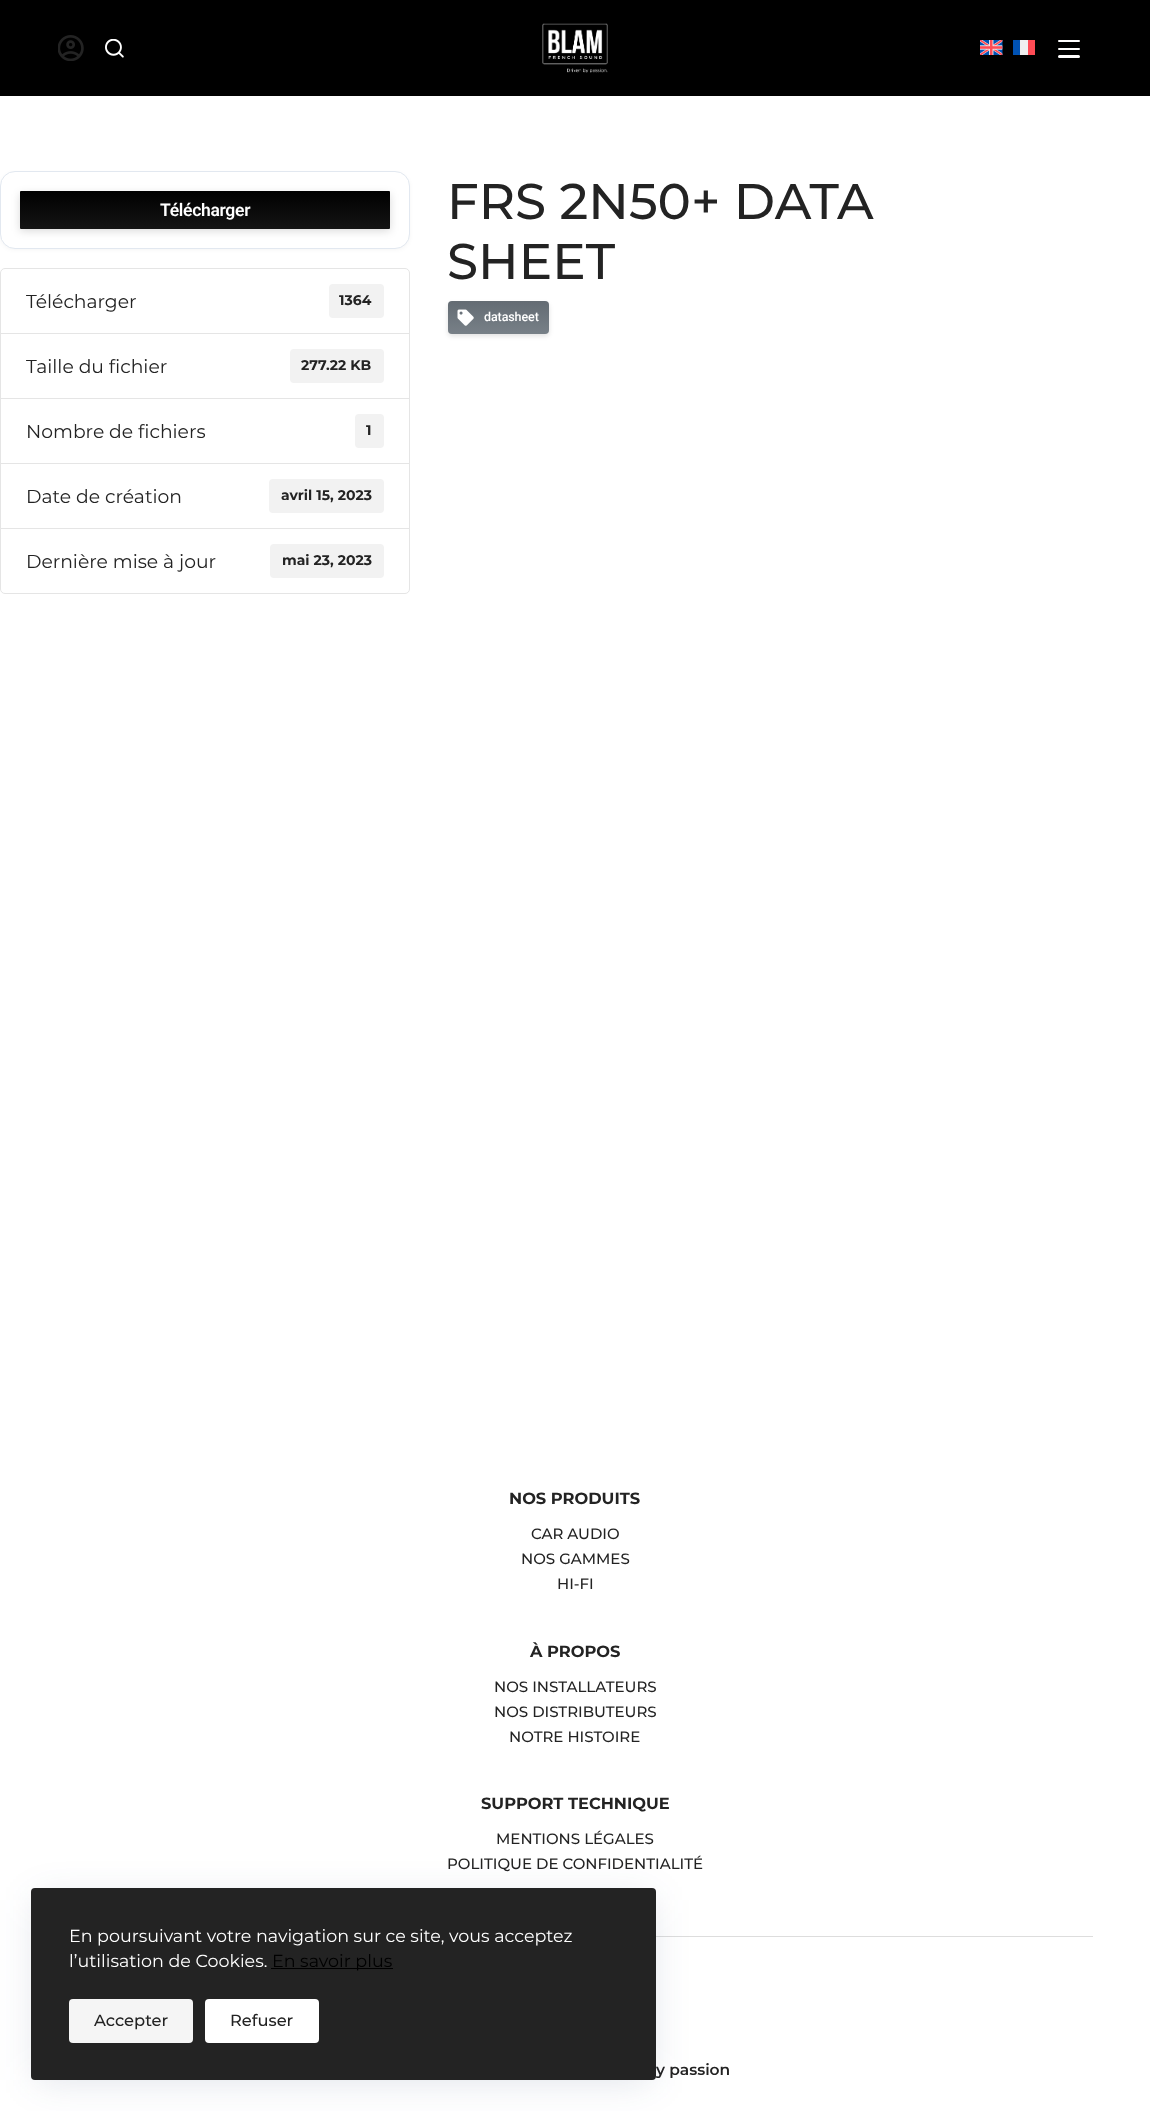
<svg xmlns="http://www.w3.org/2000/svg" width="1150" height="2111">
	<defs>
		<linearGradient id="g1" gradientUnits="userSpaceOnUse" x1="205" y1="191" x2="205" y2="229"><stop offset="0" stop-color="#000000" stop-opacity="0.08" /><stop offset="1" stop-color="#FFFFFF" stop-opacity="0.08" /></linearGradient>
		<linearGradient id="g2" gradientUnits="userSpaceOnUse" x1="498" y1="301" x2="498" y2="334"><stop offset="0" stop-color="#000000" stop-opacity="0.08" /><stop offset="1" stop-color="#FFFFFF" stop-opacity="0.08" /></linearGradient>
	</defs>
	<rect width="100%" height="100%" fill="#FFFFFF" />
	<rect x="0" y="0" width="1150" height="96" fill="#000000" />
	<image x="58" y="35" width="26" height="26" href="assets/img1.png" />
	<image x="105" y="39" width="19" height="19" href="assets/img2.png" />
	<image x="542" y="23" width="66" height="50" href="assets/img3.png" />
	<image x="980" y="40" width="23" height="15" href="assets/img4.png" />
	<rect x="1013" y="40" width="7" height="15" fill="#0052B4" />
	<rect x="1020" y="40" width="8" height="15" fill="#F0F0F0" />
	<rect x="1028" y="40" width="7" height="15" fill="#FF4B55" />
	<rect x="1058" y="40" width="22" height="2" rx="1" fill="#FFFEFE" />
	<rect x="1058" y="48" width="22" height="2" rx="1" fill="#FFFEFE" />
	<rect x="1058" y="55" width="22" height="3" rx="1.5" fill="#FFFEFE" />
	<rect x="0" y="173" width="410" height="77" rx="15" fill="#000000" fill-opacity="0.04" filter="blur(2px)" />
	<rect x="0.5" y="171.5" width="409" height="77" rx="14.5" fill="#FFFFFF" stroke="#E2E8F0" />
	<rect x="20" y="194" width="370" height="37" rx="1" fill="#000000" fill-opacity="0.15" filter="blur(4px)" />
	<rect x="20" y="191" width="370" height="38" rx="1" fill="#000000" />
	<rect x="20" y="191" width="370" height="38" fill="url(#g1)" />
	<text x="160" y="216" font-family="Roboto" font-size="17.5" font-weight="600" letter-spacing="-0.3" fill="#FFFFFF">Télécharger</text>
	<path d="M5 268.5H405C407.5 268.5 409.5 270.5 409.5 273V333.5H.5V273C.5 270.5 2.5 268.5 5 268.5Z" fill="none" stroke="#E5E5E5" />
	<text x="26" y="308" font-family="Montserrat" font-size="18.75" fill="#232323">Télécharger</text>
	<rect x="329" y="284" width="55" height="34" rx="4" fill="#F2F2F2" />
	<text x="339" y="305" font-family="Montserrat" font-size="14" font-weight="700" fill="#232323">1364</text>
	<rect x="0.5" y="333.5" width="409" height="65" fill="none" stroke="#E5E5E5" />
	<text x="26" y="373" font-family="Montserrat" font-size="18.75" fill="#232323">Taille du fichier</text>
	<rect x="290" y="349" width="94" height="34" rx="4" fill="#F2F2F2" />
	<text x="301" y="370" font-family="Montserrat" font-size="14" font-weight="700" fill="#232323">277.22 KB</text>
	<rect x="0.5" y="398.5" width="409" height="65" fill="none" stroke="#E5E5E5" />
	<text x="26" y="438" font-family="Montserrat" font-size="18.75" fill="#232323">Nombre de fichiers</text>
	<rect x="355" y="414" width="29" height="34" rx="4" fill="#F2F2F2" />
	<text x="366" y="435" font-family="Montserrat" font-size="14" font-weight="700" fill="#232323">1</text>
	<rect x="0.5" y="463.5" width="409" height="65" fill="none" stroke="#E5E5E5" />
	<text x="26" y="503" font-family="Montserrat" font-size="18.75" fill="#232323">Date de création</text>
	<rect x="269" y="479" width="115" height="34" rx="4" fill="#F2F2F2" />
	<text x="281" y="500" font-family="Montserrat" font-size="14" font-weight="700" fill="#232323">avril 15, 2023</text>
	<path d="M.5 528.5H409.5V589C409.5 591.5 407.5 593.5 405 593.5H5C2.5 593.5 .5 591.5 .5 589Z" fill="#FFFFFF" stroke="#E5E5E5" />
	<text x="26" y="568" font-family="Montserrat" font-size="18.75" fill="#232323">Dernière mise à jour</text>
	<rect x="270" y="544" width="114" height="34" rx="4" fill="#F2F2F2" />
	<text x="282" y="565" font-family="Montserrat" font-size="14" font-weight="700" fill="#232323">mai 23, 2023</text>
	<g font-family="Montserrat" font-size="50" font-weight="500" fill="#232323">
		<text x="447" y="219">FRS 2N50+ DATA</text>
		<text x="447" y="279">SHEET</text>
	</g>
	<rect x="448" y="304" width="101" height="32" rx="4" fill="#000000" fill-opacity="0.12" filter="blur(2.5px)" />
	<rect x="448" y="301" width="101" height="33" rx="4" fill="#6C757D" />
	<rect x="448" y="301" width="101" height="33" rx="4" fill="url(#g2)" />
	<image x="457" y="309" width="17" height="17" href="assets/img5.png" />
	<text x="484" y="321" font-family="Roboto" font-size="12.5" font-weight="500" letter-spacing="-0.1" fill="#FFFFFF">datasheet</text>
	<rect x="656" y="1936" width="437" height="1" fill="#DDDDDD" />
	<text x="509" y="1504" font-family="Montserrat" font-size="16.25" font-weight="700" fill="#232323">NOS PRODUITS</text>
	<g font-family="Montserrat" font-size="15" font-weight="500" fill="#232323">
		<text x="531" y="1539">CAR AUDIO</text>
		<text x="521" y="1564">NOS GAMMES</text>
		<text x="557" y="1589">HI-FI</text>
	</g>
	<text x="530" y="1657" font-family="Montserrat" font-size="16.25" font-weight="700" fill="#232323">À PROPOS</text>
	<g font-family="Montserrat" font-size="15" font-weight="500" fill="#232323">
		<text x="494" y="1692">NOS INSTALLATEURS</text>
		<text x="494" y="1717">NOS DISTRIBUTEURS</text>
		<text x="509" y="1742">NOTRE HISTOIRE</text>
	</g>
	<text x="481" y="1809" font-family="Montserrat" font-size="16.25" font-weight="700" fill="#232323">SUPPORT TECHNIQUE</text>
	<g font-family="Montserrat" font-size="15" font-weight="500" fill="#232323">
		<text x="496" y="1844">MENTIONS LÉGALES</text>
		<text x="447" y="1869">POLITIQUE DE CONFIDENTIALITÉ</text>
	</g>
	<text x="656" y="2075" font-family="Montserrat" font-size="15.5" font-weight="600" fill="#232323">y passion</text>
	<rect x="38" y="1900" width="612" height="180" fill="#223865" fill-opacity="0.15" filter="blur(19px)" />
	<rect x="31" y="1888" width="625" height="192" rx="4" fill="#232323" />
	<g font-family="Montserrat" font-size="17.5" fill="#FFFFFF">
		<text x="69" y="1942">En poursuivant votre navigation sur ce site, vous acceptez</text>
		<text x="69" y="1967">l’utilisation de Cookies.</text>
	</g>
	<rect x="271" y="1968" width="122" height="1" fill="#000000" />
	<text x="272" y="1967" font-family="Montserrat" font-size="17.5" fill="#000000">En savoir plus</text>
	<rect x="69" y="1999" width="124" height="44" rx="4" fill="#F5F5F5" />
	<text x="94" y="2026" font-family="Montserrat" font-size="16.25" font-weight="500" fill="#232323">Accepter</text>
	<rect x="205" y="1999" width="114" height="44" rx="4" fill="#FFFFFF" />
	<text x="230" y="2026" font-family="Montserrat" font-size="16.25" font-weight="500" fill="#232323">Refuser</text>
</svg>
